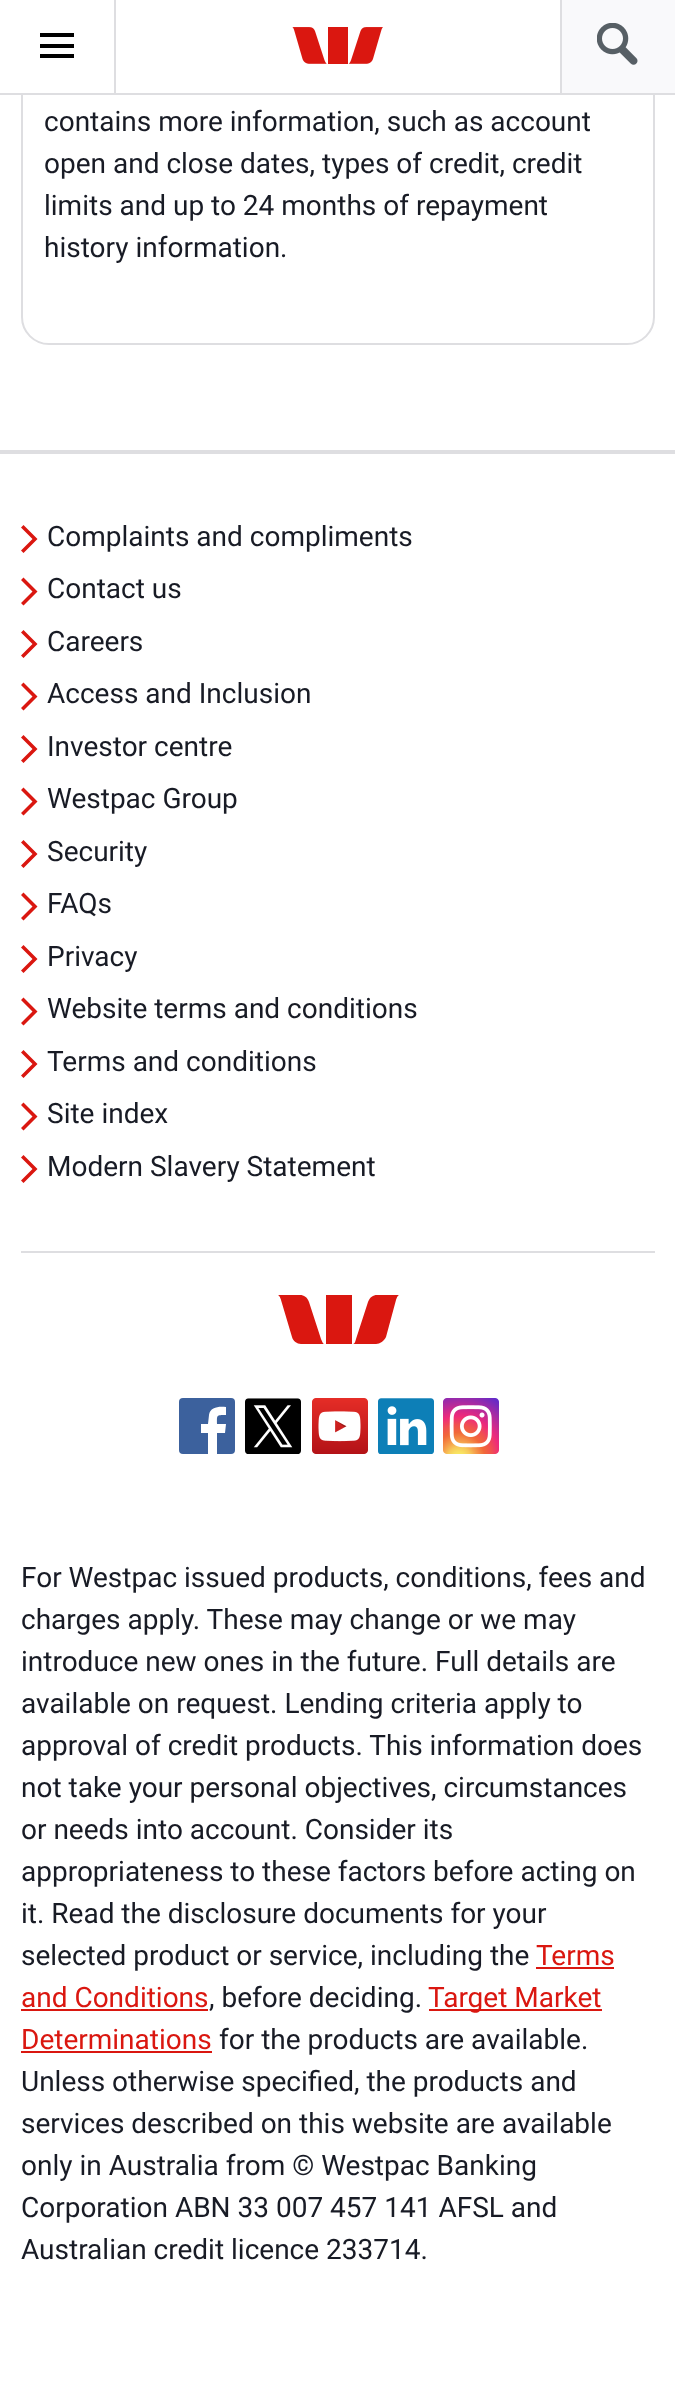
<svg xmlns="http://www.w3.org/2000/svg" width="675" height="2403">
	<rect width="100%" height="100%" fill="#FFFFFF" />
	<rect x="22" y="-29" width="632" height="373" rx="27" fill="none" stroke="#DEDEE1" stroke-width="2" />
	<rect x="21" y="0" width="2" height="93" fill="#FFFFFF" />
	<rect x="0" y="93" width="675" height="2" fill="#DEDEE1" />
	<image x="292" y="27" width="91" height="37" href="assets/img1.png" />
	<rect x="562" y="0" width="113" height="93" fill="#F9F9FB" />
	<rect x="560" y="0" width="2" height="95" fill="#DEDEE1" />
	<image x="597" y="23" width="41" height="42" href="assets/img2.png" />
	<rect x="114" y="0" width="2" height="95" fill="#DEDEE1" />
	<rect x="40" y="33" width="34" height="4" fill="#000000" />
	<rect x="40" y="44" width="34" height="4" fill="#000000" />
	<rect x="40" y="54" width="34" height="4" fill="#000000" />
	<g font-family="Roboto" font-size="28" fill="#181B25">
		<text x="44" y="131">contains more information, such as account</text>
		<text x="44" y="173">open and close dates, types of credit, credit</text>
		<text x="44" y="215">limits and up to 24 months of repayment</text>
		<text x="44" y="257">history information.</text>
	</g>
	<rect x="0" y="450" width="675" height="4" fill="#DEDEE1" />
	<path d="M32.5 539L21 550.5L23.5 553L37.5 539L23.5 525L21 527.5Z" fill="#DA1710" fill-rule="evenodd" />
	<text x="47" y="546" font-family="Roboto" font-size="28" fill="#181B25">Complaints and compliments</text>
	<path d="M32.5 591.5L21 603L23.5 605.5L37.5 591.5L23.5 577.5L21 580Z" fill="#DA1710" fill-rule="evenodd" />
	<text x="47" y="598" font-family="Roboto" font-size="28" fill="#181B25">Contact us</text>
	<path d="M32.5 644L21 655.5L23.5 658L37.5 644L23.5 630L21 632.5Z" fill="#DA1710" fill-rule="evenodd" />
	<text x="47" y="651" font-family="Roboto" font-size="28" fill="#181B25">Careers</text>
	<path d="M32.5 696.5L21 708L23.5 710.5L37.5 696.5L23.5 682.5L21 685Z" fill="#DA1710" fill-rule="evenodd" />
	<text x="47" y="703" font-family="Roboto" font-size="28" fill="#181B25">Access and Inclusion</text>
	<path d="M32.5 749L21 760.5L23.5 763L37.5 749L23.5 735L21 737.5Z" fill="#DA1710" fill-rule="evenodd" />
	<text x="47" y="756" font-family="Roboto" font-size="28" fill="#181B25">Investor centre</text>
	<path d="M32.5 801.5L21 813L23.5 815.5L37.5 801.5L23.5 787.5L21 790Z" fill="#DA1710" fill-rule="evenodd" />
	<text x="47" y="808" font-family="Roboto" font-size="28" fill="#181B25">Westpac Group</text>
	<path d="M32.5 854L21 865.5L23.5 868L37.5 854L23.5 840L21 842.5Z" fill="#DA1710" fill-rule="evenodd" />
	<text x="47" y="861" font-family="Roboto" font-size="28" fill="#181B25">Security</text>
	<path d="M32.5 906.5L21 918L23.5 920.5L37.5 906.5L23.5 892.5L21 895Z" fill="#DA1710" fill-rule="evenodd" />
	<text x="47" y="913" font-family="Roboto" font-size="28" fill="#181B25">FAQs</text>
	<path d="M32.5 959L21 970.5L23.5 973L37.5 959L23.5 945L21 947.5Z" fill="#DA1710" fill-rule="evenodd" />
	<text x="47" y="966" font-family="Roboto" font-size="28" fill="#181B25">Privacy</text>
	<path d="M32.5 1011.5L21 1023L23.5 1025.5L37.5 1011.5L23.5 997.5L21 1000Z" fill="#DA1710" fill-rule="evenodd" />
	<text x="47" y="1018" font-family="Roboto" font-size="28" fill="#181B25">Website terms and conditions</text>
	<path d="M32.5 1064L21 1075.5L23.5 1078L37.5 1064L23.5 1050L21 1052.5Z" fill="#DA1710" fill-rule="evenodd" />
	<text x="47" y="1071" font-family="Roboto" font-size="28" fill="#181B25">Terms and conditions</text>
	<path d="M32.5 1116.5L21 1128L23.5 1130.5L37.5 1116.5L23.5 1102.5L21 1105Z" fill="#DA1710" fill-rule="evenodd" />
	<text x="47" y="1123" font-family="Roboto" font-size="28" fill="#181B25">Site index</text>
	<path d="M32.5 1169L21 1180.5L23.5 1183L37.5 1169L23.5 1155L21 1157.5Z" fill="#DA1710" fill-rule="evenodd" />
	<text x="47" y="1176" font-family="Roboto" font-size="28" fill="#181B25">Modern Slavery Statement</text>
	<rect x="21" y="1251" width="634" height="2" fill="#DEDEE1" />
	<path d="M321 1339L309 1302C307 1297 304 1295 300 1295H278C280 1296 281 1300 281 1300L292 1337C293 1341 297 1344 301 1344H324C323 1344 321 1339 321 1339M356 1339L368 1302C370 1297 373 1295 377 1295H399C397 1296 396 1300 396 1300L386 1337C384 1341 380 1344 376 1344H353C355 1344 356 1339 356 1339M326 1295H352V1344H326Z" fill="#DA1710" />
	<rect x="179" y="1398" width="56" height="56" rx="4" fill="#3C619D" />
	<path d="M217 1454V1433H225L226 1424H217C217 1415 216 1415 226 1415V1407C219 1406 210 1407 209 1415L208 1424H201V1433H208V1454Z" fill="#FFFFFF" />
	<image x="245" y="1398" width="56" height="56" href="assets/img3.png" />
	<image x="312" y="1398" width="56" height="56" href="assets/img4.png" />
	<image x="378" y="1398" width="56" height="56" href="assets/img5.png" />
	<image x="443" y="1398" width="56" height="56" href="assets/img6.png" />
	<g font-family="Roboto" font-size="28" fill="#181B25">
		<text x="21" y="1587">For Westpac issued products, conditions, fees and</text>
		<text x="21" y="1629">charges apply. These may change or we may</text>
		<text x="21" y="1671">introduce new ones in the future. Full details are</text>
		<text x="21" y="1713">available on request. Lending criteria apply to</text>
		<text x="21" y="1755">approval of credit products. This information does</text>
		<text x="21" y="1797">not take your personal objectives, circumstances</text>
		<text x="21" y="1839">or needs into account. Consider its</text>
		<text x="21" y="1881">appropriateness to these factors before acting on</text>
		<text x="21" y="1923">it. Read the disclosure documents for your</text>
		<text x="21" y="1965">selected product or service, including the</text>
	</g>
	<text x="536" y="1965" font-family="Roboto" font-size="28" fill="#DA1710">Terms</text>
	<rect x="536" y="1967" width="78" height="2" fill="#DA1710" />
	<text x="21" y="2007" font-family="Roboto" font-size="28" fill="#DA1710">and Conditions</text>
	<rect x="21" y="2009" width="187" height="2" fill="#DA1710" />
	<text x="209" y="2007" font-family="Roboto" font-size="28" fill="#181B25">, before deciding.</text>
	<rect x="429" y="2009" width="173" height="2" fill="#DA1710" />
	<g font-family="Roboto" font-size="28" fill="#DA1710">
		<text x="428" y="2007">Target Market</text>
		<text x="21" y="2049">Determinations</text>
	</g>
	<rect x="21" y="2051" width="191" height="2" fill="#DA1710" />
	<g font-family="Roboto" font-size="28" fill="#181B25">
		<text x="219" y="2049">for the products are available.</text>
		<text x="21" y="2091">Unless otherwise specified, the products and</text>
		<text x="21" y="2133">services described on this website are available</text>
		<text x="21" y="2175">only in Australia from © Westpac Banking</text>
		<text x="21" y="2217">Corporation ABN 33 007 457 141 AFSL and</text>
		<text x="21" y="2259">Australian credit licence 233714.</text>
	</g>
</svg>
